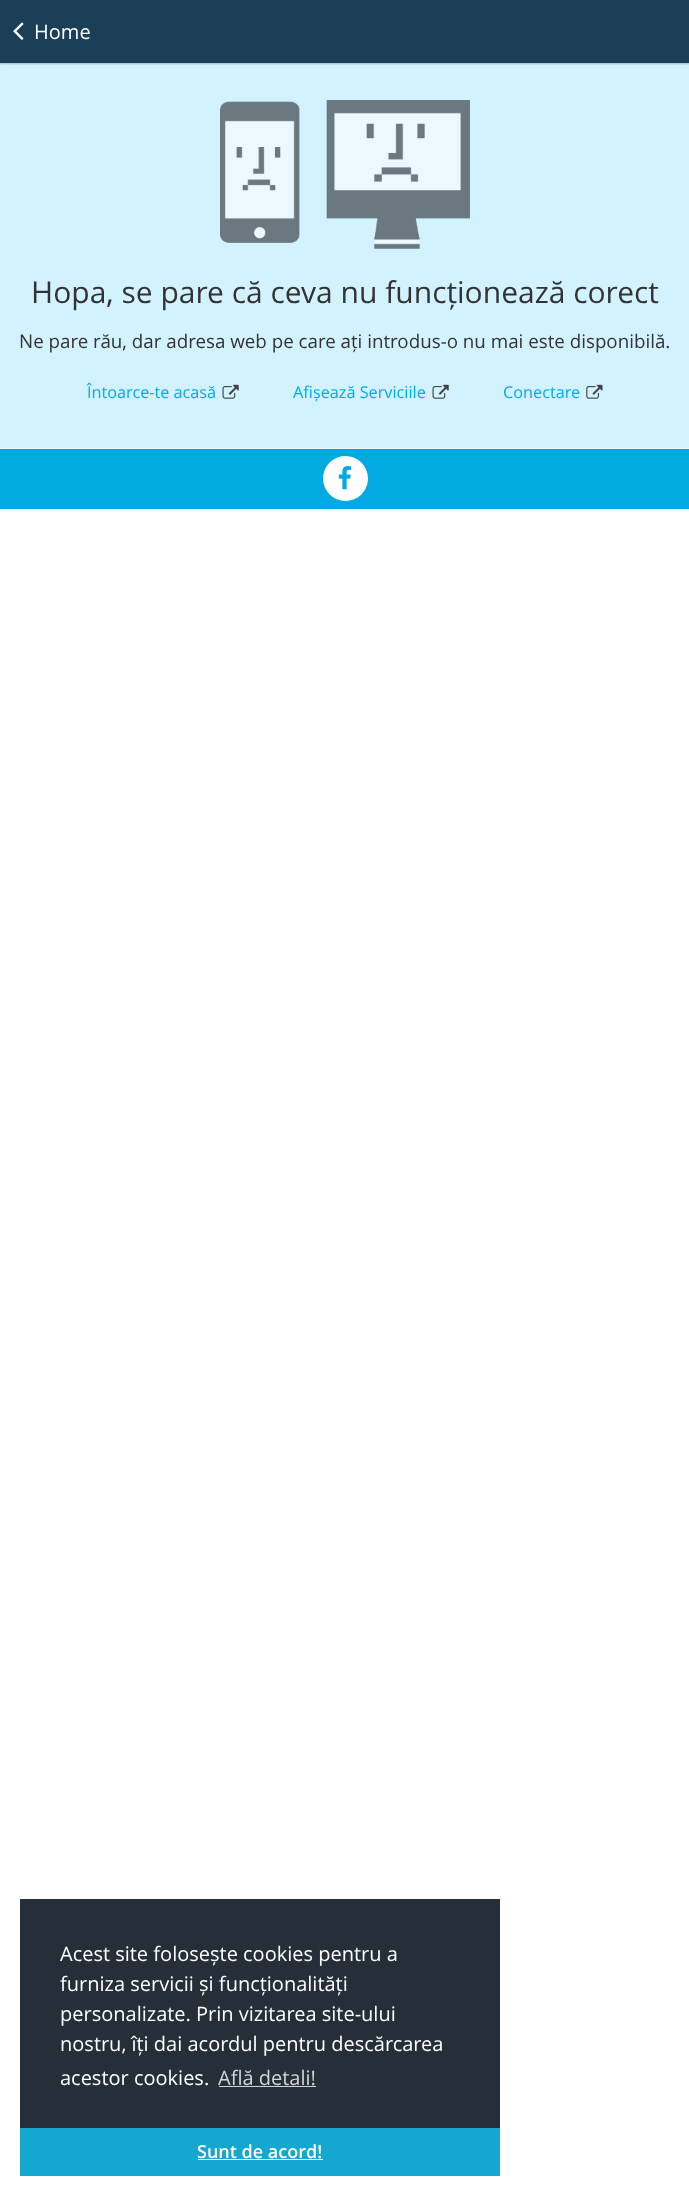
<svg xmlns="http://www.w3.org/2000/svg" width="689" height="2196">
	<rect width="100%" height="100%" fill="#FFFFFF" />
	<rect x="0" y="63" width="689" height="385" fill="#D2F2FF" />
	<rect x="0" y="1" width="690" height="63" fill="#000000" fill-opacity="0.24" filter="blur(1px)" />
	<rect x="0" y="0" width="689" height="63" fill="#1B3F57" />
	<image x="13" y="22" width="11" height="18" href="assets/img1.png" />
	<text x="34" y="39" font-family="Open Sans" font-size="20" fill="#FFFFFF">Home</text>
	<image x="220" y="100" width="250" height="149" href="assets/img2.png" />
	<text x="31" y="303" font-family="Open Sans" font-size="30" fill="#333333">Hopa, se pare că ceva nu funcționează corect</text>
	<text x="19" y="348" font-family="Open Sans" font-size="18.75" fill="#333333">Ne pare rău, dar adresa web pe care ați introdus-o nu mai este disponibilă.</text>
	<text x="87" y="398" font-family="Open Sans" font-size="16.25" fill="#03A9F4">Întoarce-te acasă</text>
	<image x="222" y="384" width="17" height="15" href="assets/img3.png" />
	<text x="293" y="398" font-family="Open Sans" font-size="16.25" fill="#03A9F4">Afișează Serviciile</text>
	<image x="432" y="384" width="17" height="15" href="assets/img3.png" />
	<text x="503" y="398" font-family="Open Sans" font-size="16.25" fill="#03A9F4">Conectare</text>
	<image x="586" y="384" width="17" height="15" href="assets/img4.png" />
	<rect x="0" y="449" width="689" height="60" fill="#00A9E0" />
	<rect x="0" y="448" width="689" height="1" fill="#F2F2F2" />
	<circle cx="345.5" cy="478.5" r="22.5" fill="#FFFFFF" />
	<image x="338" y="466" width="13" height="24" href="assets/img5.png" />
	<rect x="20" y="1899" width="480" height="229" fill="#252E39" />
	<g font-family="Open Sans" font-size="20" fill="#FFFFFF">
		<text x="60" y="1961">Acest site folosește cookies pentru a</text>
		<text x="60" y="1991">furniza servicii și funcționalități</text>
		<text x="60" y="2021">personalizate. Prin vizitarea site-ului</text>
		<text x="60" y="2051">nostru, îți dai acordul pentru descărcarea</text>
		<text x="60" y="2085">acestor cookies.</text>
	</g>
	<text x="218" y="2085" font-family="Open Sans" font-size="20" fill="#D3D5D7">Află detali!</text>
	<rect x="219" y="2086" width="97" height="1" fill="#D3D5D7" />
	<rect x="20" y="2128" width="480" height="48" fill="#14A7D0" />
	<text x="197" y="2158" font-family="Open Sans" font-size="18" font-weight="600" fill="#FFFFFF">Sunt de acord!</text>
	<rect x="198" y="2159" width="125" height="1" fill="#FFFFFF" />
</svg>
